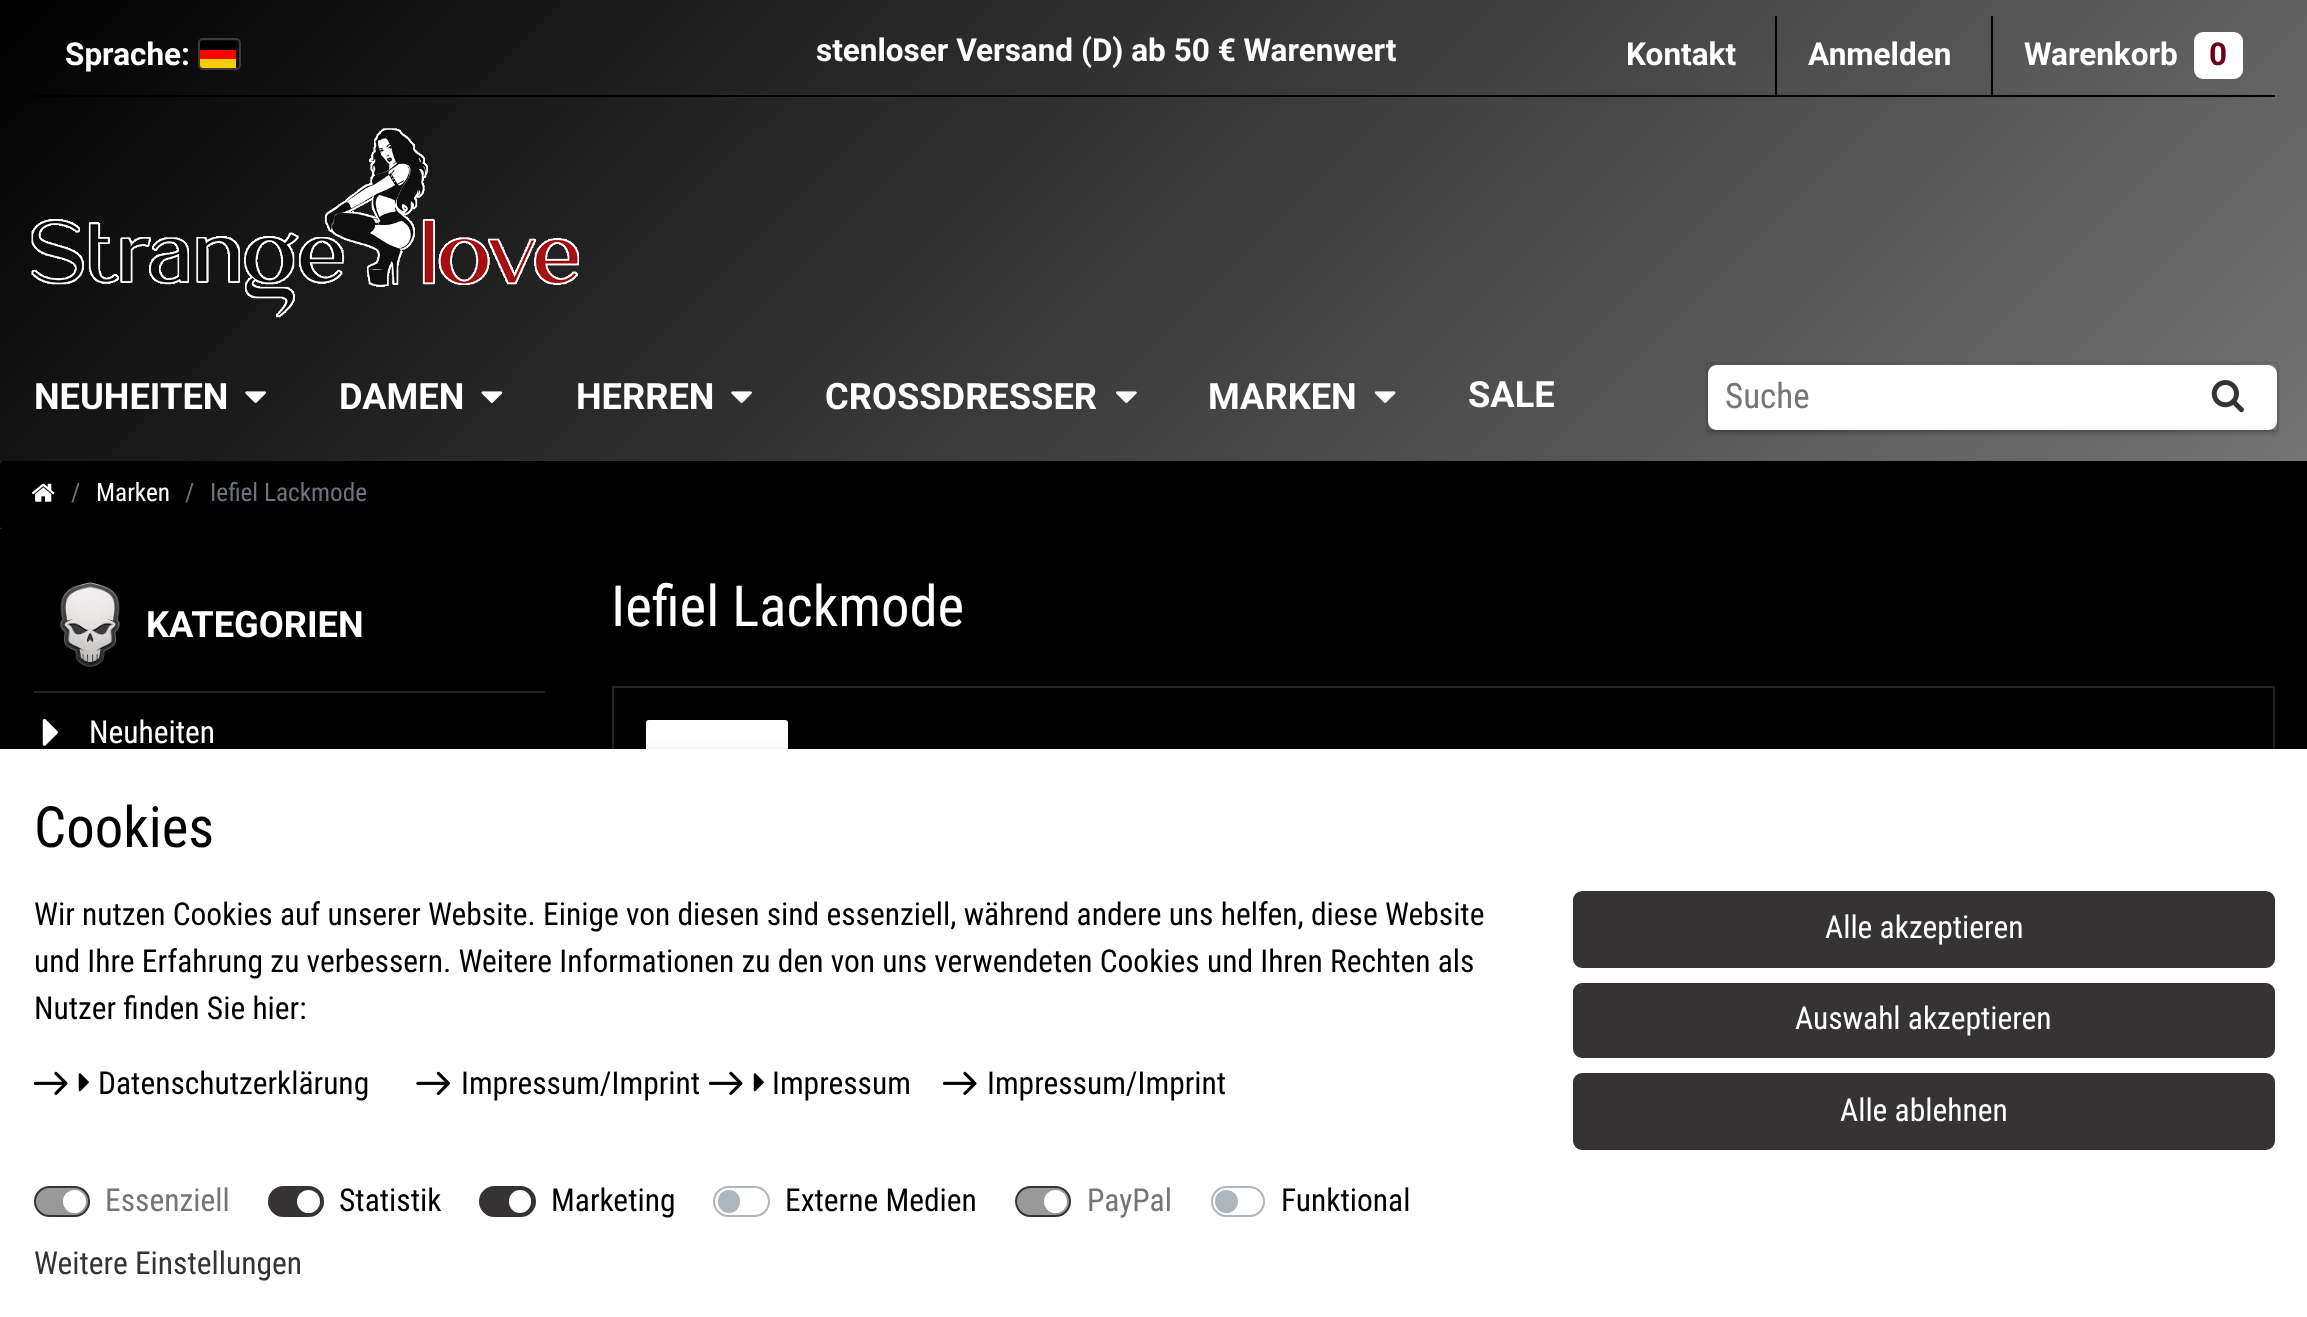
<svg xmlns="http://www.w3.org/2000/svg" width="2307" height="1317">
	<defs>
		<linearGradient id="g1" gradientUnits="userSpaceOnUse" x1="462" y1="-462" x2="1847" y2="923"><stop offset="0" stop-color="#000000" /><stop offset="1" stop-color="#747474" /></linearGradient>
		<clipPath id="clip1"><path d="M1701 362H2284V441H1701ZM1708 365H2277V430H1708Z" clip-rule="evenodd" /></clipPath>
	</defs>
	<rect width="100%" height="100%" fill="#353334" />
	<rect x="0" y="0" width="2307" height="461" fill="url(#g1)" />
	<rect x="34" y="95" width="2241" height="2" fill="#000000" />
	<text x="65" y="65" font-family="Roboto" font-size="31.5" font-weight="700" fill="#FFFFFF">Sprache:</text>
	<rect x="200" y="59" width="36" height="9" fill="#FFCC00" />
	<rect x="200" y="41" width="36" height="9" fill="#000000" />
	<rect x="200" y="50" width="36" height="9" fill="#FF0000" />
	<rect x="199" y="39" width="41" height="30" rx="4" fill="none" stroke="#3A3A3A" stroke-width="2" />
	<g font-family="Roboto" font-size="31.5" font-weight="700" fill="#FFFFFF">
		<text x="816" y="61">stenloser Versand (D) ab 50 € Warenwert</text>
		<text x="1626" y="65">Kontakt</text>
	</g>
	<rect x="1775" y="16" width="2" height="79" fill="#000000" />
	<text x="1808" y="65" font-family="Roboto" font-size="31.5" font-weight="700" fill="#FFFFFF">Anmelden</text>
	<rect x="1991" y="16" width="2" height="79" fill="#000000" />
	<text x="2024" y="65" font-family="Roboto" font-size="31.5" font-weight="700" fill="#FFFFFF">Warenkorb</text>
	<rect x="2194" y="32" width="49" height="47" rx="9" fill="#FFFFFF" />
	<text x="2209" y="65" font-family="Roboto" font-size="31.5" font-weight="700" fill="#6D0019">0</text>
	<image x="31" y="128" width="548" height="190" href="assets/img1.png" />
	<text x="34" y="409" font-family="Roboto" font-size="36.25" font-weight="700" fill="#FFFFFF">NEUHEITEN</text>
	<image x="245" y="391" width="21" height="12" href="assets/img2.png" />
	<text x="339" y="409" font-family="Roboto" font-size="36.25" font-weight="700" fill="#FFFFFF">DAMEN</text>
	<image x="481" y="391" width="22" height="12" href="assets/img3.png" />
	<text x="576" y="409" font-family="Roboto" font-size="36.25" font-weight="700" fill="#FFFFFF">HERREN</text>
	<image x="731" y="391" width="21" height="12" href="assets/img4.png" />
	<text x="825" y="409" font-family="Roboto" font-size="36.25" font-weight="700" fill="#FFFFFF">CROSSDRESSER</text>
	<image x="1116" y="391" width="21" height="12" href="assets/img5.png" />
	<text x="1208" y="409" font-family="Roboto" font-size="36.25" font-weight="700" fill="#FFFFFF">MARKEN</text>
	<image x="1374" y="391" width="22" height="12" href="assets/img6.png" />
	<text x="1468" y="407" font-family="Roboto" font-size="36.25" font-weight="700" fill="#FFFFFF">SALE</text>
	<rect x="1707" y="363" width="571" height="68" fill="none" stroke="#000000" stroke-opacity="0.08" stroke-width="2" />
	<g clip-path="url(#clip1)">
		<rect x="1708" y="369" width="569" height="65" fill="#000000" fill-opacity="0.16" filter="blur(2px)" />
	</g>
	<path d="M1717 365H2180V430H1717C1712 430 1708 426 1708 421V374C1708 369 1712 365 1717 365Z" fill="#FFFFFF" />
	<text x="1725" y="408" font-family="Roboto Condensed" font-size="35" fill="#757575">Suche</text>
	<path d="M2180 365H2268C2273 365 2277 369 2277 374V421C2277 426 2273 430 2268 430H2180Z" fill="#FFFFFF" />
	<image x="2211" y="380" width="33" height="33" href="assets/img7.png" />
	<rect x="0" y="461" width="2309" height="68" rx="3" fill="#000000" />
	<image x="31" y="483" width="24" height="19" href="assets/img8.png" />
	<text x="71" y="501" font-family="Roboto Condensed" font-size="25.25" fill="#6C757D">/</text>
	<text x="96" y="501" font-family="Roboto Condensed" font-size="25.25" fill="#FFFFFF">Marken</text>
	<g font-family="Roboto Condensed" font-size="25.25" fill="#6C757D">
		<text x="185" y="501">/</text>
		<text x="210" y="501">Iefiel Lackmode</text>
	</g>
	<rect x="0" y="529" width="2307" height="220" fill="#000000" />
	<text x="611" y="626" font-family="Roboto Condensed" font-size="56.75" fill="#FFFFFF">Iefiel Lackmode</text>
	<rect x="613" y="687" width="1661" height="154" fill="none" stroke="#232323" stroke-width="2" />
	<rect x="646" y="720" width="142" height="88" rx="3" fill="#FFFFFF" />
	<image x="59" y="582" width="62" height="85" href="assets/img9.png" />
	<rect x="34" y="691" width="511" height="2" fill="#232323" />
	<text x="146" y="637" font-family="Roboto" font-size="36.25" font-weight="700" fill="#FFFFFF">KATEGORIEN</text>
	<image x="42" y="718" width="16" height="28" href="assets/img10.png" />
	<text x="89" y="743" font-family="Roboto Condensed" font-size="31.5" fill="#FFFFFF">Neuheiten</text>
	<rect x="0" y="752" width="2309" height="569" fill="#000000" fill-opacity="0.15" filter="blur(5.5px)" />
	<rect x="0" y="749" width="2307" height="568" fill="#FFFFFF" />
	<text x="34" y="847" font-family="Roboto Condensed" font-size="56.75" fill="#000000">Cookies</text>
	<g font-family="Roboto Condensed" font-size="31.5" fill="#000000">
		<text x="34" y="925">Wir nutzen Cookies auf unserer Website. Einige von diesen sind essenziell, während andere uns helfen, diese Website</text>
		<text x="34" y="972">und Ihre Erfahrung zu verbessern. Weitere Informationen zu den von uns verwendeten Cookies und Ihren Rechten als</text>
		<text x="34" y="1019">Nutzer finden Sie hier:</text>
	</g>
	<image x="34" y="1071" width="34" height="24" href="assets/img11.png" />
	<image x="78" y="1073" width="11" height="19" href="assets/img12.png" />
	<text x="98" y="1094" font-family="Roboto Condensed" font-size="31.5" fill="#000000">Datenschutzerklärung</text>
	<image x="416" y="1071" width="34" height="24" href="assets/img13.png" />
	<text x="461" y="1094" font-family="Roboto Condensed" font-size="31.5" fill="#000000">Impressum/Imprint</text>
	<image x="709" y="1071" width="34" height="24" href="assets/img11.png" />
	<image x="753" y="1073" width="11" height="19" href="assets/img12.png" />
	<text x="772" y="1094" font-family="Roboto Condensed" font-size="31.5" fill="#000000">Impressum</text>
	<image x="943" y="1071" width="34" height="24" href="assets/img11.png" />
	<text x="987" y="1094" font-family="Roboto Condensed" font-size="31.5" fill="#000000">Impressum/Imprint</text>
	<rect x="35" y="1187" width="54" height="29" rx="14.5" fill="#9A999A" stroke="#353334" stroke-width="2" />
	<text x="105" y="1211" font-family="Roboto Condensed" font-size="31.5" fill="#757575">Essenziell</text>
	<circle cx="74.5" cy="1201.5" r="11.5" fill="#FFFFFF" />
	<rect x="269" y="1187" width="54" height="29" rx="14.5" fill="#353334" stroke="#353334" stroke-width="2" />
	<text x="339" y="1211" font-family="Roboto Condensed" font-size="31.5" fill="#000000">Statistik</text>
	<circle cx="308.5" cy="1201.5" r="11.5" fill="#FFFFFF" />
	<rect x="480" y="1187" width="55" height="29" rx="14.5" fill="#353334" stroke="#353334" stroke-width="2" />
	<text x="551" y="1211" font-family="Roboto Condensed" font-size="31.5" fill="#000000">Marketing</text>
	<rect x="509" y="1190" width="22" height="23" rx="11" fill="#FFFFFF" />
	<rect x="714" y="1187" width="55" height="29" rx="14.5" fill="none" stroke="#ADB5BD" stroke-width="2" />
	<text x="785" y="1211" font-family="Roboto Condensed" font-size="31.5" fill="#000000">Externe Medien</text>
	<rect x="718" y="1190" width="22" height="23" rx="11" fill="#ADB5BD" />
	<rect x="1016" y="1187" width="54" height="29" rx="14.5" fill="#9A999A" stroke="#353334" stroke-width="2" />
	<text x="1087" y="1211" font-family="Roboto Condensed" font-size="31.5" fill="#757575">PayPal</text>
	<circle cx="1055.5" cy="1201.5" r="11.5" fill="#FFFFFF" />
	<rect x="1212" y="1187" width="52" height="29" rx="14.5" fill="none" stroke="#ADB5BD" stroke-width="2" />
	<text x="1281" y="1211" font-family="Roboto Condensed" font-size="31.5" fill="#000000">Funktional</text>
	<circle cx="1226.5" cy="1201.5" r="11.5" fill="#ADB5BD" />
	<text x="34" y="1274" font-family="Roboto Condensed" font-size="31.5" fill="#353334">Weitere Einstellungen</text>
	<rect x="1574" y="892" width="700" height="75" rx="8" fill="#353334" stroke="#353334" stroke-width="2" />
	<text x="1825" y="938" font-family="Roboto Condensed" font-size="31.5" fill="#FFFFFF">Alle akzeptieren</text>
	<rect x="1574" y="984" width="700" height="73" rx="8" fill="#353334" stroke="#353334" stroke-width="2" />
	<text x="1795" y="1029" font-family="Roboto Condensed" font-size="31.5" fill="#FFFFFF">Auswahl akzeptieren</text>
	<rect x="1574" y="1074" width="700" height="75" rx="8" fill="#353334" stroke="#353334" stroke-width="2" />
	<text x="1840" y="1121" font-family="Roboto Condensed" font-size="31.5" fill="#FFFFFF">Alle ablehnen</text>
</svg>
